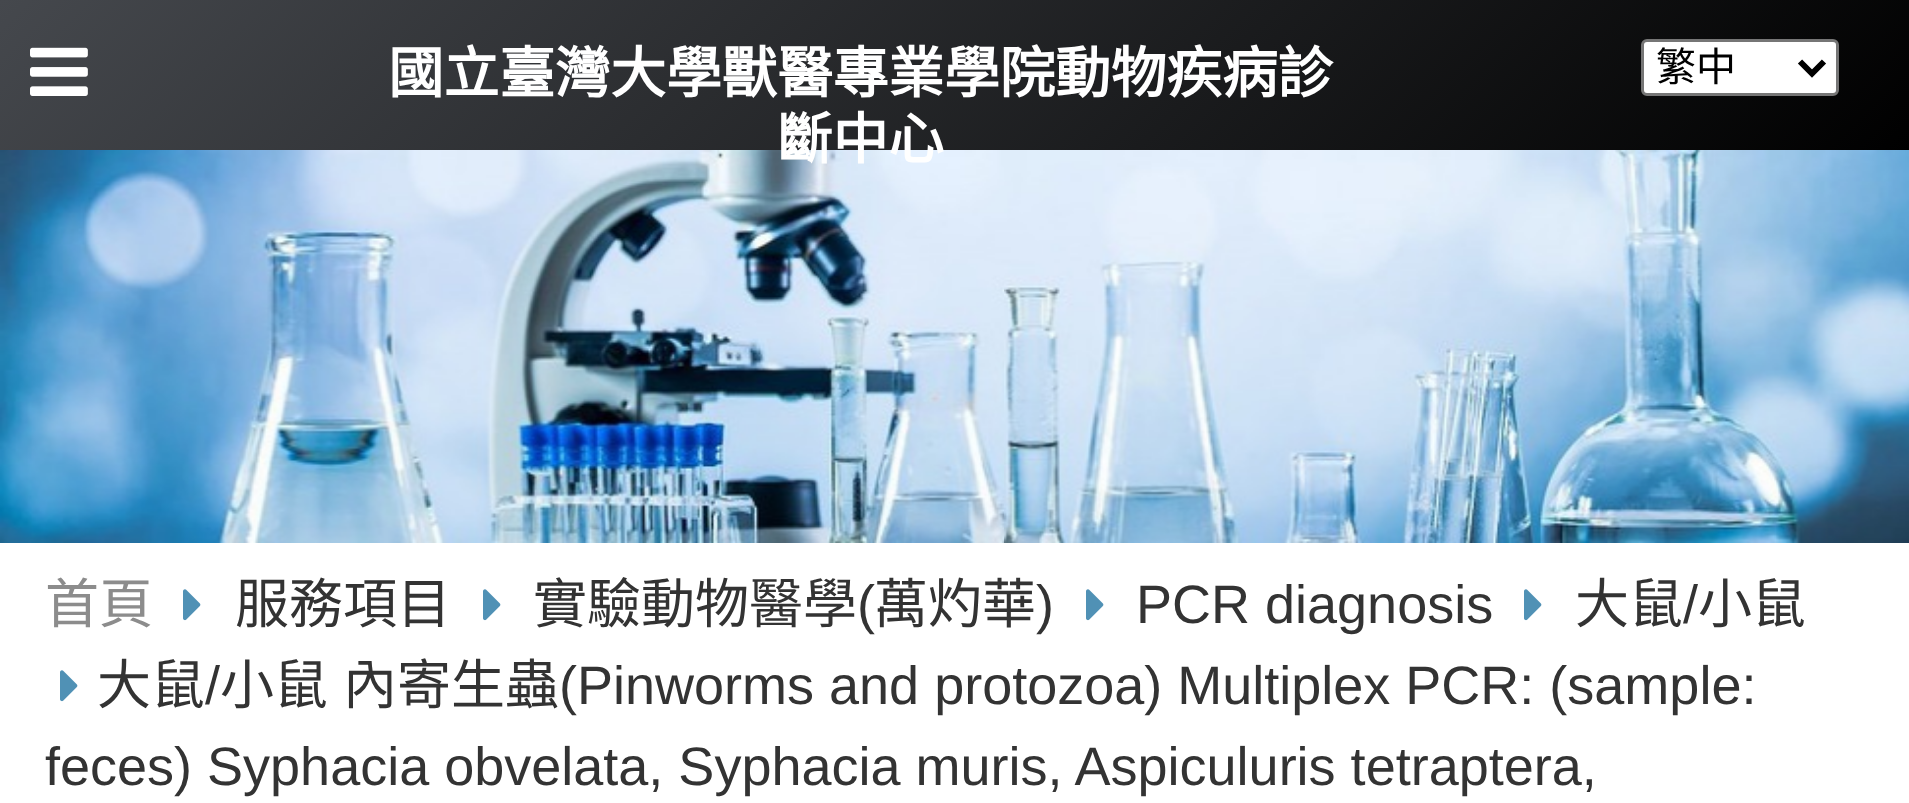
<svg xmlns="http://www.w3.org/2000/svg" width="1909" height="803">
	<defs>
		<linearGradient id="g1" gradientUnits="userSpaceOnUse" x1="440" y1="-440" x2="1471" y2="590"><stop offset="0" stop-color="#45484D" /><stop offset="1" stop-color="#000000" /></linearGradient>
	</defs>
	<rect width="100%" height="100%" fill="#FFFFFF" />
	<rect x="0" y="0" width="1909" height="150" fill="url(#g1)" />
	<text x="388" y="93" font-family="Noto Sans CJK TC" font-size="55.6" font-weight="700" fill="#FFFFFF">國立臺灣大學獸醫專業學院動物疾病診</text>
	<image x="0" y="150" width="1909" height="393" href="assets/img1.png" />
	<text x="777" y="159" font-family="Noto Sans CJK TC" font-size="55.6" font-weight="700" fill="#FFFFFF">斷中心</text>
	<text x="45" y="623" font-family="Noto Sans CJK TC" font-size="54" fill="#8C8C8C">首頁</text>
	<image x="183" y="589" width="18" height="32" href="assets/img2.png" />
	<text x="235" y="623" font-family="Noto Sans CJK TC" font-size="54" fill="#333333">服務項目</text>
	<image x="483" y="589" width="18" height="32" href="assets/img2.png" />
	<text x="533" y="623" font-family="Noto Sans CJK TC" font-size="54" fill="#333333">實驗動物醫學</text>
	<text x="857" y="623" font-family="Liberation Sans" font-size="54" fill="#333333">(</text>
	<text x="874" y="623" font-family="Noto Sans CJK TC" font-size="54" fill="#333333">萬灼華</text>
	<text x="1036" y="623" font-family="Liberation Sans" font-size="54" fill="#333333">)</text>
	<image x="1086" y="589" width="18" height="32" href="assets/img2.png" />
	<text x="1136" y="623" font-family="Liberation Sans" font-size="54" fill="#333333">PCR diagnosis</text>
	<image x="1524" y="589" width="18" height="32" href="assets/img2.png" />
	<text x="1575" y="623" font-family="Noto Sans CJK TC" font-size="54" fill="#333333">大鼠</text>
	<text x="1683" y="623" font-family="Liberation Sans" font-size="54" fill="#333333">/</text>
	<text x="1698" y="623" font-family="Noto Sans CJK TC" font-size="54" fill="#333333">小鼠</text>
	<image x="60" y="670" width="18" height="32" href="assets/img2.png" />
	<text x="97" y="704" font-family="Noto Sans CJK TC" font-size="54" fill="#333333">大鼠</text>
	<text x="205" y="704" font-family="Liberation Sans" font-size="54" fill="#333333">/</text>
	<g font-family="Noto Sans CJK TC" font-size="54" fill="#333333">
		<text x="220" y="704">小鼠</text>
		<text x="343" y="704">內寄生蟲</text>
	</g>
	<g font-family="Liberation Sans" font-size="54" fill="#333333">
		<text x="559" y="704">(Pinworms and protozoa) Multiplex PCR: (sample:</text>
		<text x="45" y="785">feces) Syphacia obvelata, Syphacia muris, Aspiculuris tetraptera,</text>
	</g>
	<image x="30" y="47" width="58" height="49" href="assets/img3.png" />
	<rect x="1642.5" y="40.5" width="195" height="54" rx="4.5" fill="#FFFFFF" stroke="#767676" stroke-width="3" />
	<path d="M1800 61.5L1812 73.5L1824 61.5" fill="none" stroke="#000000" stroke-width="6" />
	<text x="1656" y="81" font-family="Noto Sans CJK TC" font-size="40" fill="#000000">繁中</text>
</svg>
